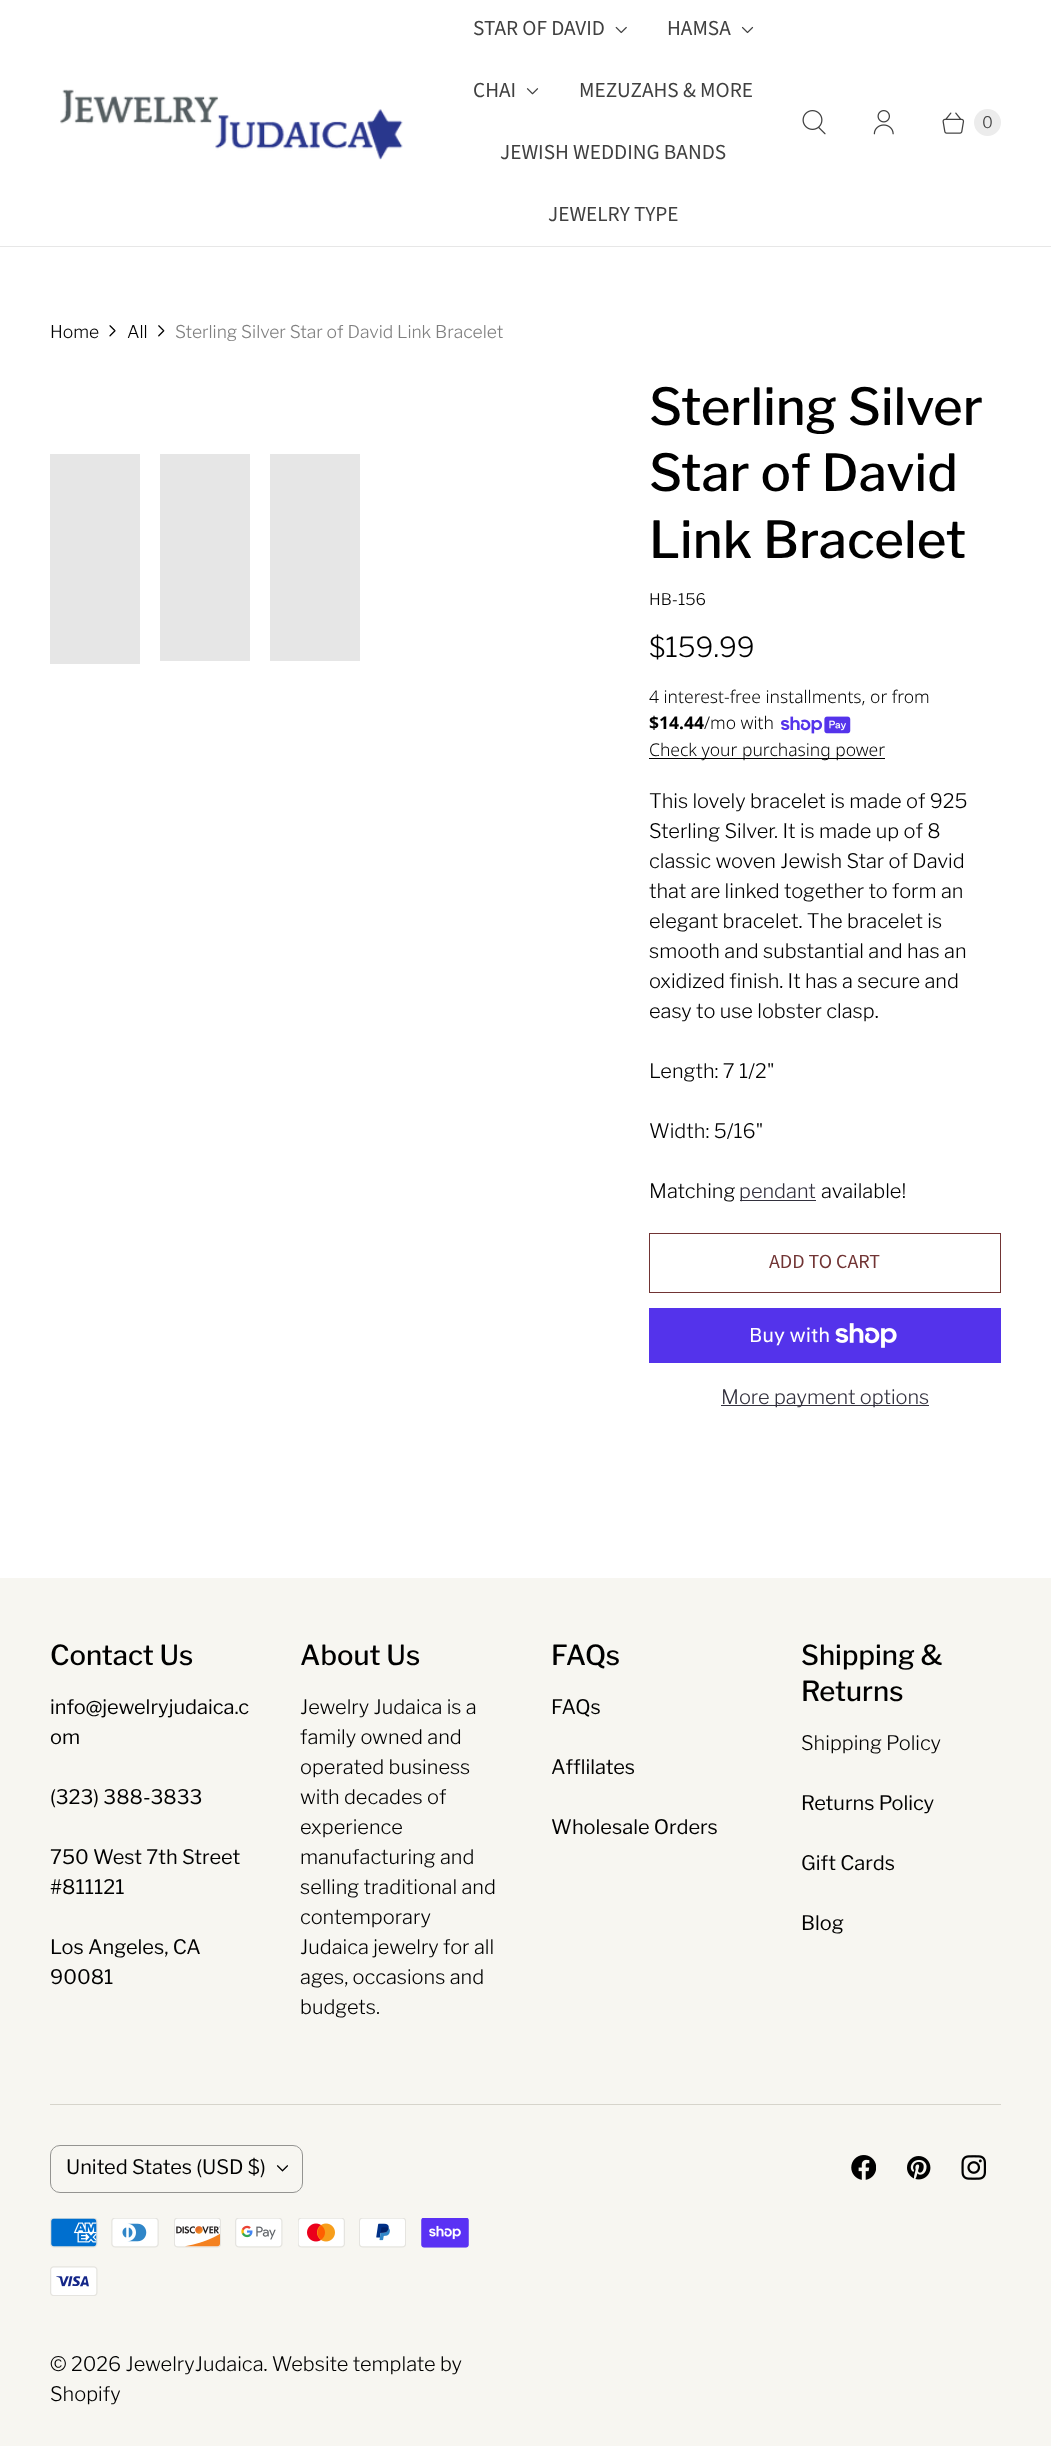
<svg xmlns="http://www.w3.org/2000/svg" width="1051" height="2446">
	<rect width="100%" height="100%" fill="#FFFFFF" />
	<rect x="0" y="246" width="1051" height="1" fill="#E7E7E7" />
	<image x="60" y="89" width="343" height="71" href="assets/img1.png" />
	<text x="473" y="35" font-family="Source Sans Pro" font-size="21.25" fill="#404040">STAR OF DAVID</text>
	<image x="615" y="26" width="12" height="8" href="assets/img2.png" />
	<text x="667" y="35" font-family="Source Sans Pro" font-size="21.25" fill="#404040">HAMSA</text>
	<image x="741" y="26" width="13" height="8" href="assets/img3.png" />
	<text x="473" y="97" font-family="Source Sans Pro" font-size="21.25" fill="#404040">CHAI</text>
	<image x="526" y="88" width="13" height="7" href="assets/img4.png" />
	<g font-family="Source Sans Pro" font-size="21.25" fill="#404040">
		<text x="579" y="97">MEZUZAHS &amp; MORE</text>
		<text x="500" y="159">JEWISH WEDDING BANDS</text>
		<text x="548" y="221">JEWELRY TYPE</text>
	</g>
	<image x="802" y="110" width="24" height="25" href="assets/img5.png" />
	<image x="873" y="110" width="21" height="25" href="assets/img6.png" />
	<image x="942" y="112" width="23" height="22" href="assets/img7.png" />
	<circle cx="987.5" cy="122.5" r="13.5" fill="#ECECEC" />
	<text x="982" y="128" font-family="Libre Franklin" font-size="16" font-weight="300" fill="#404040">0</text>
	<text x="50" y="338" font-family="Libre Franklin" font-size="17.5" font-weight="300" fill="#000000">Home</text>
	<image x="109" y="325" width="7" height="12" href="assets/img8.png" />
	<text x="127" y="338" font-family="Libre Franklin" font-size="17.5" font-weight="300" fill="#000000">All</text>
	<image x="158" y="325" width="7" height="12" href="assets/img9.png" />
	<text x="175" y="338" font-family="Libre Franklin" font-size="17.5" font-weight="300" fill="#808080">Sterling Silver Star of David Link Bracelet</text>
	<rect x="50" y="454" width="90" height="210" fill="#E6E6E6" />
	<rect x="160" y="454" width="90" height="207" fill="#E6E6E6" />
	<rect x="270" y="454" width="90" height="207" fill="#E6E6E6" />
	<g font-family="Libre Franklin" font-size="51" font-weight="500" fill="#000000">
		<text x="649" y="425">Sterling Silver</text>
		<text x="649" y="491">Star of David</text>
		<text x="649" y="558">Link Bracelet</text>
	</g>
	<text x="649" y="605" font-family="Libre Franklin" font-size="16" font-weight="300" fill="#000000">HB-156</text>
	<text x="649" y="657" font-family="Libre Franklin" font-size="27.5" font-weight="300" fill="#000000">$159.99</text>
	<text x="649" y="703" font-family="Noto Sans" font-size="17.5" font-weight="300" fill="#000000">4 interest-free installments, or from</text>
	<text x="649" y="729" font-family="Noto Sans" font-size="17.5" font-weight="700" fill="#000000">$14.44</text>
	<text x="704" y="729" font-family="Noto Sans" font-size="17.5" font-weight="300" fill="#000000">/mo with</text>
	<image x="781" y="716" width="70" height="18" href="assets/img10.png" />
	<rect x="649" y="758" width="236" height="1" fill="#000000" />
	<text x="649" y="756" font-family="Noto Sans" font-size="17.5" font-weight="300" fill="#000000">Check your purchasing power</text>
	<g font-family="Libre Franklin" font-size="20" font-weight="300" fill="#000000">
		<text x="649" y="808">This lovely bracelet is made of 925</text>
		<text x="649" y="838">Sterling Silver. It is made up of 8</text>
		<text x="649" y="868">classic woven Jewish Star of David</text>
		<text x="649" y="898">that are linked together to form an</text>
		<text x="649" y="928">elegant bracelet. The bracelet is</text>
		<text x="649" y="958">smooth and substantial and has an</text>
		<text x="649" y="988">oxidized finish. It has a secure and</text>
		<text x="649" y="1018">easy to use lobster clasp.</text>
		<text x="649" y="1078">Length: 7 1/2"</text>
		<text x="649" y="1138">Width: 5/16"</text>
		<text x="649" y="1198">Matching</text>
	</g>
	<rect x="740" y="1200" width="76" height="1" fill="#32303D" />
	<text x="739" y="1198" font-family="Libre Franklin" font-size="20" font-weight="300" fill="#32303D">pendant</text>
	<text x="821" y="1198" font-family="Libre Franklin" font-size="20" font-weight="300" fill="#000000">available!</text>
	<rect x="649.5" y="1233.5" width="351" height="59" fill="none" stroke="#713434" />
	<text x="769" y="1268" font-family="Source Sans Pro" font-size="20" fill="#713434">ADD TO CART</text>
	<rect x="649" y="1308" width="352" height="55" fill="#5433EB" />
	<text x="749" y="1342" font-family="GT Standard" font-size="20" fill="#FFFFFF">Buy with</text>
	<image x="835" y="1323" width="62" height="25" href="assets/img11.png" />
	<rect x="721" y="1405" width="208" height="1" fill="#32303D" />
	<text x="721" y="1404" font-family="Libre Franklin" font-size="20" font-weight="300" fill="#32303D">More payment options</text>
	<rect x="0" y="1578" width="1051" height="868" fill="#F7F6F1" />
	<text x="50" y="1665" font-family="Libre Franklin" font-size="27.5" font-weight="500" fill="#000000">Contact Us</text>
	<g font-family="Libre Franklin" font-size="20" fill="#000000">
		<text x="50" y="1714">info@jewelryjudaica.c</text>
		<text x="50" y="1744">om</text>
		<text x="50" y="1804">(323) 388-3833</text>
		<text x="50" y="1864">750 West 7th Street</text>
		<text x="50" y="1894">#811121</text>
		<text x="50" y="1954">Los Angeles, CA</text>
		<text x="50" y="1984">90081</text>
	</g>
	<text x="300" y="1665" font-family="Libre Franklin" font-size="27.5" font-weight="500" fill="#000000">About Us</text>
	<g font-family="Libre Franklin" font-size="20" font-weight="300" fill="#000000">
		<text x="300" y="1714">Jewelry Judaica is a</text>
		<text x="300" y="1744">family owned and</text>
		<text x="300" y="1774">operated business</text>
		<text x="300" y="1804">with decades of</text>
		<text x="300" y="1834">experience</text>
		<text x="300" y="1864">manufacturing and</text>
		<text x="300" y="1894">selling traditional and</text>
		<text x="300" y="1924">contemporary</text>
		<text x="300" y="1954">Judaica jewelry for all</text>
		<text x="300" y="1984">ages, occasions and</text>
		<text x="300" y="2014">budgets.</text>
	</g>
	<text x="551" y="1665" font-family="Libre Franklin" font-size="27.5" font-weight="500" fill="#000000">FAQs</text>
	<g font-family="Libre Franklin" font-size="20" fill="#000000">
		<text x="551" y="1714">FAQs</text>
		<text x="551" y="1774">Afflilates</text>
		<text x="551" y="1834">Wholesale Orders</text>
	</g>
	<g font-family="Libre Franklin" font-size="27.5" font-weight="500" fill="#000000">
		<text x="801" y="1665">Shipping &amp;</text>
		<text x="801" y="1701">Returns</text>
	</g>
	<text x="801" y="1750" font-family="Libre Franklin" font-size="20" font-weight="300" fill="#000000">Shipping Policy</text>
	<g font-family="Libre Franklin" font-size="20" fill="#000000">
		<text x="801" y="1810">Returns Policy</text>
		<text x="801" y="1870">Gift Cards</text>
		<text x="801" y="1930">Blog</text>
	</g>
	<rect x="50" y="2104" width="951" height="1" fill="#D6D4CB" />
	<rect x="50.5" y="2145.5" width="252" height="47" rx="9.5" fill="none" stroke="#949491" />
	<text x="66" y="2174" font-family="Libre Franklin" font-size="20" fill="#000000">United States (USD $)</text>
	<image x="276" y="2165" width="12" height="7" href="assets/img12.png" />
	<image x="50" y="2218" width="48" height="30" href="assets/img13.png" />
	<image x="111" y="2218" width="48" height="30" href="assets/img14.png" />
	<image x="174" y="2218" width="47" height="30" href="assets/img15.png" />
	<image x="235" y="2218" width="48" height="30" href="assets/img16.png" />
	<image x="298" y="2218" width="47" height="30" href="assets/img17.png" />
	<image x="359" y="2218" width="47" height="30" href="assets/img18.png" />
	<image x="421" y="2218" width="48" height="30" href="assets/img19.png" />
	<image x="50" y="2266" width="48" height="30" href="assets/img20.png" />
	<g font-family="Libre Franklin" font-size="20" font-weight="300" fill="#000000">
		<text x="50" y="2371">© 2026 JewelryJudaica. Website template by</text>
		<text x="50" y="2401">Shopify</text>
	</g>
	<image x="851" y="2155" width="25" height="25" href="assets/img21.png" />
	<image x="907" y="2156" width="24" height="24" href="assets/img22.png" />
	<image x="961" y="2155" width="25" height="25" href="assets/img23.png" />
</svg>
